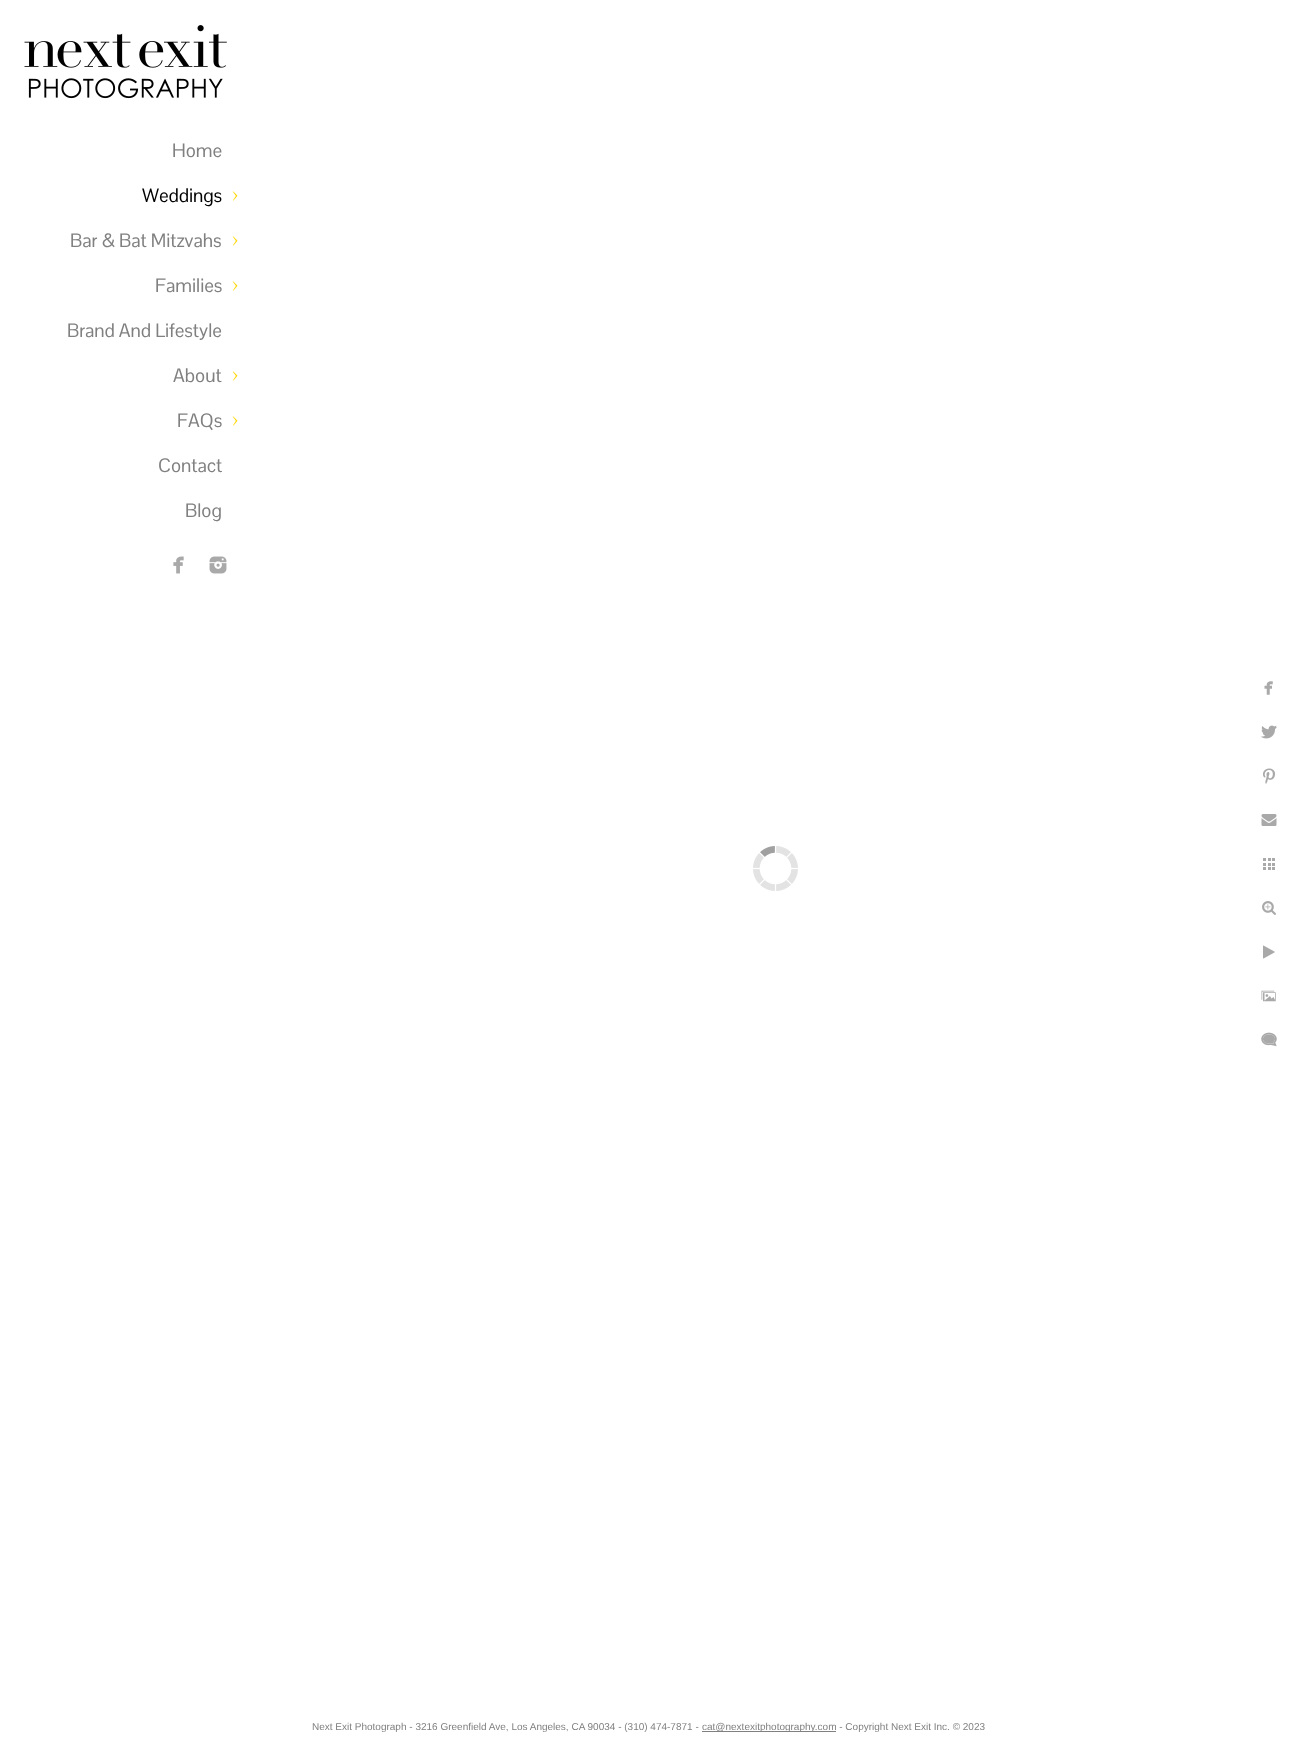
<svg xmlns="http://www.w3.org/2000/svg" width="1296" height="1747">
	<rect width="100%" height="100%" fill="#FFFFFF" />
	<image x="24" y="25" width="203" height="74" href="assets/img1.png" />
	<text x="172" y="157" font-family="Pontano Sans" font-size="19" fill="#808080">Home</text>
	<text x="142" y="202" font-family="Pontano Sans" font-size="19" fill="#000000">Weddings</text>
	<image x="232" y="191" width="6" height="10" href="assets/img2.png" />
	<text x="70" y="247" font-family="Pontano Sans" font-size="19" fill="#808080">Bar &amp; Bat Mitzvahs</text>
	<image x="232" y="236" width="6" height="10" href="assets/img2.png" />
	<text x="155" y="292" font-family="Pontano Sans" font-size="19" fill="#808080">Families</text>
	<image x="232" y="281" width="6" height="10" href="assets/img2.png" />
	<g font-family="Pontano Sans" font-size="19" fill="#808080">
		<text x="67" y="337">Brand And Lifestyle</text>
		<text x="173" y="382">About</text>
	</g>
	<image x="232" y="371" width="6" height="10" href="assets/img2.png" />
	<text x="177" y="427" font-family="Pontano Sans" font-size="19" fill="#808080">FAQs</text>
	<image x="232" y="416" width="6" height="10" href="assets/img2.png" />
	<g font-family="Pontano Sans" font-size="19" fill="#808080">
		<text x="158" y="472">Contact</text>
		<text x="185" y="517">Blog</text>
	</g>
	<image x="173" y="556" width="11" height="18" href="assets/img3.png" />
	<image x="209" y="556" width="18" height="18" href="assets/img4.png" />
	<image x="753" y="846" width="45" height="45" href="assets/img5.png" />
	<image x="1264" y="681" width="9" height="14" href="assets/img6.png" />
	<image x="1261" y="725" width="16" height="14" href="assets/img7.png" />
	<image x="1263" y="768" width="12" height="16" href="assets/img8.png" />
	<image x="1261" y="814" width="16" height="12" href="assets/img9.png" />
	<image x="1263" y="858" width="12" height="12" href="assets/img10.png" />
	<image x="1262" y="901" width="14" height="14" href="assets/img11.png" />
	<image x="1263" y="945" width="12" height="14" href="assets/img12.png" />
	<image x="1261" y="990" width="15" height="12" href="assets/img13.png" />
	<image x="1261" y="1032" width="16" height="15" href="assets/img14.png" />
	<text x="312" y="1730" font-family="Liberation Sans" font-size="10" fill="#808080">Next Exit Photograph - 3216 Greenfield Ave, Los Angeles, CA 90034 - (310) 474-7871 -</text>
	<rect x="702" y="1731" width="134" height="1" fill="#808080" />
	<text x="702" y="1730" font-family="Liberation Sans" font-size="10" fill="#808080">cat@nextexitphotography.com - Copyright Next Exit Inc. © 2023</text>
</svg>
